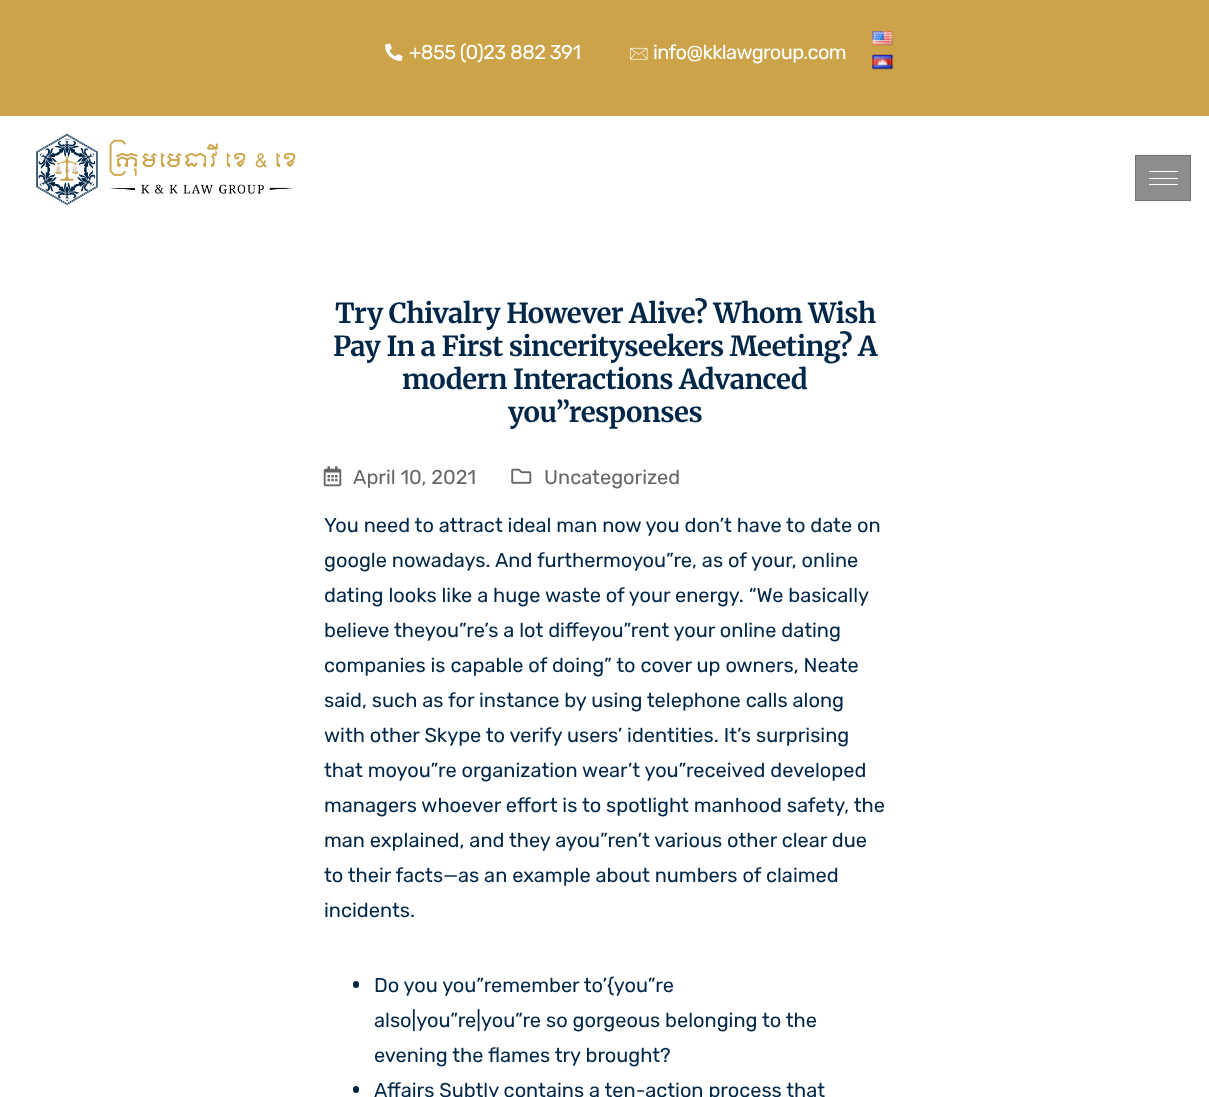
<svg xmlns="http://www.w3.org/2000/svg" width="1209" height="1097">
	<rect width="100%" height="100%" fill="#FFFFFF" />
	<rect x="0" y="0" width="1209" height="116" fill="#CCA349" />
	<image x="385" y="43" width="18" height="18" href="assets/img1.png" />
	<text x="409" y="59" font-family="Rubik" font-size="20" letter-spacing="-0.6" fill="#FFFFFF">+855 (0)23 882 391</text>
	<image x="630" y="47" width="18" height="13" href="assets/img2.png" />
	<text x="653" y="59" font-family="Rubik" font-size="20" letter-spacing="-0.6" fill="#FFFFFF">info@kklawgroup.com</text>
	<image x="872" y="31" width="22" height="15" href="assets/img3.png" />
	<image x="872" y="54" width="22" height="16" href="assets/img4.png" />
	<image x="36" y="133" width="260" height="72" href="assets/img5.png" />
	<rect x="1135.5" y="155.5" width="55" height="45" fill="#8D8D8D" stroke="#717171" />
	<rect x="1149" y="171" width="29" height="1" fill="#FFFFFF" />
	<rect x="1149" y="178" width="29" height="1" fill="#FFFFFF" />
	<rect x="1149" y="184" width="29" height="1" fill="#FFFFFF" />
	<g font-family="Merriweather" font-size="27.5" font-weight="700" letter-spacing="-0.5" fill="#002748">
		<text x="335" y="323">Try Chivalry However Alive? Whom Wish</text>
		<text x="333" y="356">Pay In a First sincerityseekers Meeting? A</text>
		<text x="402" y="389">modern Interactions Advanced</text>
		<text x="508" y="422">you”responses</text>
	</g>
	<image x="323" y="466" width="19" height="21" href="assets/img6.png" />
	<text x="353" y="484" font-family="Rubik" font-size="20" fill="#666666">April 10, 2021</text>
	<image x="511" y="468" width="21" height="16" href="assets/img7.png" />
	<text x="544" y="484" font-family="Rubik" font-size="20" fill="#666666">Uncategorized</text>
	<g font-family="Rubik" font-size="20" fill="#002748">
		<text x="324" y="532">You need to attract ideal man now you don’t have to date on</text>
		<text x="324" y="567">google nowadays. And furthermoyou”re, as of your, online</text>
		<text x="324" y="602">dating looks like a huge waste of your energy. “We basically</text>
		<text x="324" y="637">believe theyou”re’s a lot diffeyou”rent your online dating</text>
		<text x="324" y="672">companies is capable of doing” to cover up owners, Neate</text>
		<text x="324" y="707">said, such as for instance by using telephone calls along</text>
		<text x="324" y="742">with other Skype to verify users’ identities. It’s surprising</text>
		<text x="324" y="777">that moyou”re organization wear’t you”received developed</text>
		<text x="324" y="812">managers whoever effort is to spotlight manhood safety, the</text>
		<text x="324" y="847">man explained, and they ayou”ren’t various other clear due</text>
		<text x="324" y="882">to their facts—as an example about numbers of claimed</text>
		<text x="324" y="917">incidents.</text>
	</g>
	<rect x="353" y="981" width="6" height="7" rx="3" fill="#002748" />
	<g font-family="Rubik" font-size="20" fill="#002748">
		<text x="374" y="992">Do you you”remember to’{you”re</text>
		<text x="374" y="1027">also|you”re|you”re so gorgeous belonging to the</text>
		<text x="374" y="1062">evening the flames try brought?</text>
	</g>
	<rect x="353" y="1086" width="6" height="7" rx="3" fill="#002748" />
	<text x="374" y="1097" font-family="Rubik" font-size="20" fill="#002748">Affairs Subtly contains a ten-action process that</text>
</svg>
